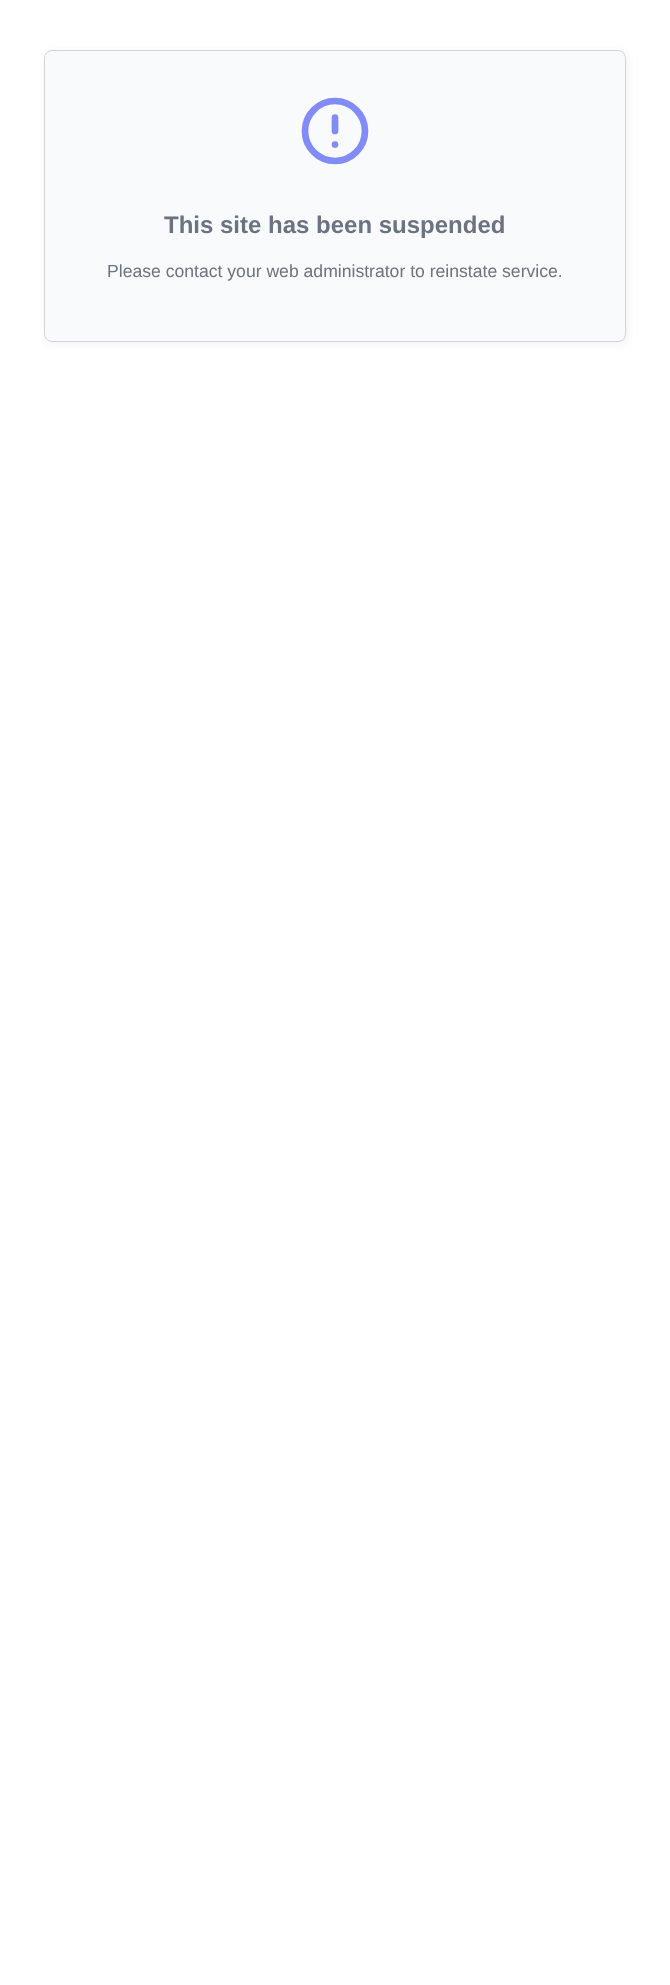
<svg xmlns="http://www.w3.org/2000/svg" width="670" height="1985">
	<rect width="100%" height="100%" fill="#FFFFFF" />
	<rect x="46" y="52" width="582" height="292" rx="8" fill="#000000" fill-opacity="0.05" filter="blur(4px)" />
	<rect x="44.5" y="50.5" width="581" height="291" rx="7.5" fill="#F9FAFB" stroke="#D1D5DB" />
	<path d="M335 117.5V131M335 144.5H335M365 131C365 147.5 351.5 161 335 161C318.5 161 305 147.5 305 131C305 114.5 318.5 101 335 101C351.5 101 365 114.5 365 131Z" fill="none" stroke="#818CF8" stroke-width="6.7" stroke-linecap="round" stroke-linejoin="round" />
	<text x="164" y="233" font-family="Liberation Sans" font-size="24" font-weight="700" fill="#6B7280">This site has been suspended</text>
	<text x="107" y="277" font-family="Liberation Sans" font-size="17.6" fill="#6B7280">Please contact your web administrator to reinstate service.</text>
</svg>
